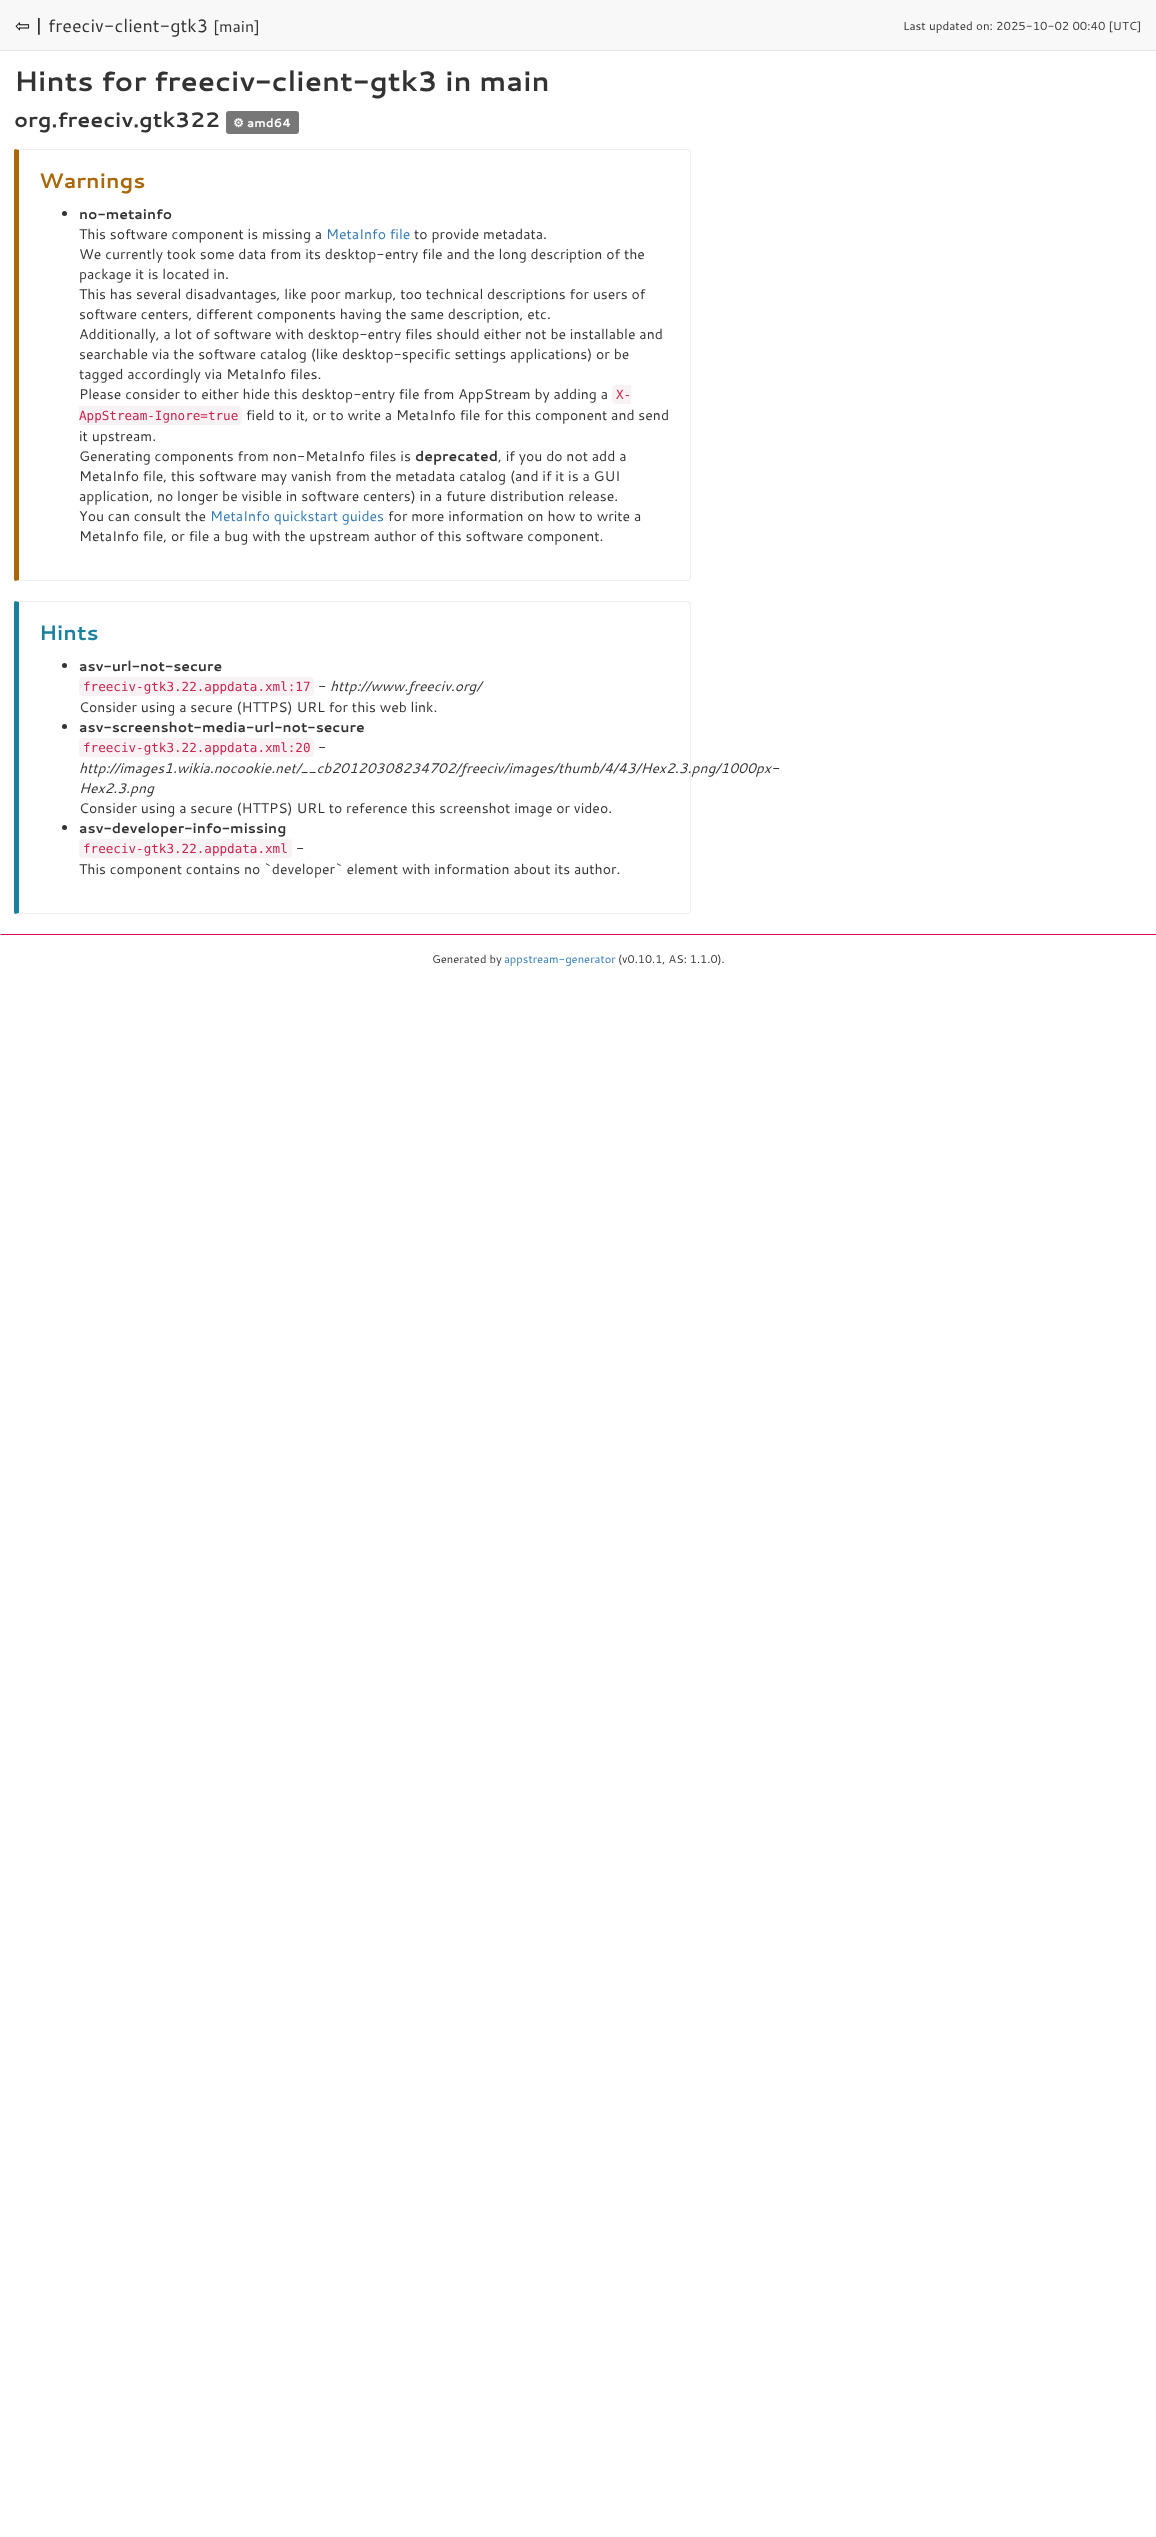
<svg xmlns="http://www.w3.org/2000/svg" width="1156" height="2537">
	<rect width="100%" height="100%" fill="#FFFFFF" />
	<rect x="0" y="0" width="1156" height="50" fill="#F8F8F8" />
	<rect x="0" y="50" width="1156" height="1" fill="#E7E7E7" />
	<text x="15" y="32" font-family="DejaVu Sans" font-size="18" fill="#000000">⇦</text>
	<text x="35" y="32" font-family="Cantarell" font-size="18" fill="#000000">|</text>
	<text x="48" y="32" font-family="Cantarell" font-size="18" fill="#333333">freeciv-client-gtk3</text>
	<text x="213" y="32" font-family="Cantarell" font-size="16" fill="#333333">[main]</text>
	<text x="903" y="30" font-family="Cantarell" font-size="11.7" fill="#333333">Last updated on: 2025-10-02 00:40 [UTC]</text>
	<text x="14" y="91" font-family="Cantarell" font-size="28" font-weight="700" fill="#333333">Hints for freeciv-client-gtk3 in main</text>
	<text x="14" y="127" font-family="Cantarell" font-size="21" font-weight="700" fill="#333333">org.freeciv.gtk322</text>
	<rect x="226" y="111" width="73" height="23" rx="3" fill="#777777" />
	<text x="233" y="127" font-family="DejaVu Sans" font-size="12" font-weight="700" fill="#FFFFFF">⚙</text>
	<text x="247" y="127" font-family="Cantarell" font-size="12" font-weight="700" fill="#FFFFFF">amd64</text>
	<path d="M17 149H15L19 150H688L689 151L690 150L688 149Z" fill="#EEEEEE" />
	<path d="M691 578V152L690 150L689 151L690 152V578L689 579L690 580Z" fill="#EEEEEE" />
	<path d="M17 581H688L690 580L689 579L688 580H19L15 581Z" fill="#EEEEEE" />
	<path d="M19 150L15 149C14 150 14 151 14 152V578C14 579 14 580 15 581L19 580Z" fill="#AA6708" />
	<text x="39" y="188" font-family="Cantarell" font-size="21" font-weight="700" fill="#AA6708">Warnings</text>
	<circle cx="64.5" cy="213.5" r="2.5" fill="#333333" />
	<text x="79" y="219" font-family="Cantarell" font-size="14" font-weight="700" fill="#333333">no-metainfo</text>
	<text x="79" y="239" font-family="Cantarell" font-size="14" fill="#333333">This software component is missing a</text>
	<text x="326" y="239" font-family="Cantarell" font-size="14" fill="#337AB7">MetaInfo file</text>
	<g font-family="Cantarell" font-size="14" fill="#333333">
		<text x="414" y="239">to provide metadata.</text>
		<text x="79" y="259">We currently took some data from its desktop-entry file and the long description of the</text>
		<text x="79" y="279">package it is located in.</text>
		<text x="79" y="299">This has several disadvantages, like poor markup, too technical descriptions for users of</text>
		<text x="79" y="319">software centers, different components having the same description, etc.</text>
		<text x="79" y="339">Additionally, a lot of software with desktop-entry files should either not be installable and</text>
		<text x="79" y="359">searchable via the software catalog (like desktop-specific settings applications) or be</text>
		<text x="79" y="379">tagged accordingly via MetaInfo files.</text>
		<text x="79" y="399">Please consider to either hide this desktop-entry file from AppStream by adding a</text>
	</g>
	<path d="M616 385H631V404H616C614 404 612 402 612 400V389C612 387 614 385 616 385Z" fill="#F9F2F4" />
	<text x="616" y="399" font-family="DejaVu Sans Mono" font-size="12.6" fill="#C7254E">X-</text>
	<path d="M79 406H238C240 406 242 408 242 410V421C242 423 240 425 238 425H79Z" fill="#F9F2F4" />
	<text x="79" y="420" font-family="DejaVu Sans Mono" font-size="12.6" fill="#C7254E">AppStream-Ignore=true</text>
	<g font-family="Cantarell" font-size="14" fill="#333333">
		<text x="246" y="420">field to it, or to write a MetaInfo file for this component and send</text>
		<text x="79" y="441">it upstream.</text>
		<text x="79" y="461">Generating components from non-MetaInfo files is</text>
	</g>
	<text x="415" y="461" font-family="Cantarell" font-size="14" font-weight="700" fill="#333333">deprecated</text>
	<g font-family="Cantarell" font-size="14" fill="#333333">
		<text x="498" y="461">, if you do not add a</text>
		<text x="79" y="481">MetaInfo file, this software may vanish from the metadata catalog (and if it is a GUI</text>
		<text x="79" y="501">application, no longer be visible in software centers) in a future distribution release.</text>
		<text x="79" y="521">You can consult the</text>
	</g>
	<text x="210" y="521" font-family="Cantarell" font-size="14" fill="#337AB7">MetaInfo quickstart guides</text>
	<g font-family="Cantarell" font-size="14" fill="#333333">
		<text x="388" y="521">for more information on how to write a</text>
		<text x="79" y="541">MetaInfo file, or file a bug with the upstream author of this software component.</text>
	</g>
	<path d="M17 601H15L19 602H688L689 603L690 602L688 601Z" fill="#EEEEEE" />
	<path d="M691 911V604L690 602L689 603L690 604V911L689 912L690 913Z" fill="#EEEEEE" />
	<path d="M17 914H688L690 913L689 912L688 913H19L15 914Z" fill="#EEEEEE" />
	<path d="M19 602L15 601C14 602 14 603 14 604V911C14 912 14 913 15 914L19 913Z" fill="#1B809E" />
	<text x="39" y="640" font-family="Cantarell" font-size="21" font-weight="700" fill="#1B809E">Hints</text>
	<circle cx="64.5" cy="665.5" r="2.5" fill="#333333" />
	<text x="79" y="671" font-family="Cantarell" font-size="14" font-weight="700" fill="#333333">asv-url-not-secure</text>
	<rect x="79" y="677" width="235" height="19" rx="4" fill="#F9F2F4" />
	<text x="83" y="691" font-family="DejaVu Sans Mono" font-size="12.6" fill="#C7254E">freeciv-gtk3.22.appdata.xml:17</text>
	<text x="318" y="691" font-family="Cantarell" font-size="14" fill="#333333">-</text>
	<text x="330" y="691" font-family="Cantarell" font-size="14" font-style="italic" fill="#333333">http://www.freeciv.org/</text>
	<text x="79" y="712" font-family="Cantarell" font-size="14" fill="#333333">Consider using a secure (HTTPS) URL for this web link.</text>
	<circle cx="64.5" cy="726.5" r="2.5" fill="#333333" />
	<text x="79" y="732" font-family="Cantarell" font-size="14" font-weight="700" fill="#333333">asv-screenshot-media-url-not-secure</text>
	<rect x="79" y="738" width="235" height="19" rx="4" fill="#F9F2F4" />
	<text x="83" y="752" font-family="DejaVu Sans Mono" font-size="12.6" fill="#C7254E">freeciv-gtk3.22.appdata.xml:20</text>
	<text x="318" y="752" font-family="Cantarell" font-size="14" fill="#333333">-</text>
	<g font-family="Cantarell" font-size="14" font-style="italic" fill="#333333">
		<text x="79" y="773">http://images1.wikia.nocookie.net/__cb20120308234702/freeciv/images/thumb/4/43/Hex2.3.png/1000px-</text>
		<text x="79" y="793">Hex2.3.png</text>
	</g>
	<text x="79" y="813" font-family="Cantarell" font-size="14" fill="#333333">Consider using a secure (HTTPS) URL to reference this screenshot image or video.</text>
	<circle cx="64.5" cy="827.5" r="2.5" fill="#333333" />
	<text x="79" y="833" font-family="Cantarell" font-size="14" font-weight="700" fill="#333333">asv-developer-info-missing</text>
	<rect x="79" y="839" width="213" height="19" rx="4" fill="#F9F2F4" />
	<text x="83" y="853" font-family="DejaVu Sans Mono" font-size="12.6" fill="#C7254E">freeciv-gtk3.22.appdata.xml</text>
	<g font-family="Cantarell" font-size="14" fill="#333333">
		<text x="296" y="853">-</text>
		<text x="79" y="874">This component contains no `developer` element with information about its author.</text>
	</g>
	<rect x="0" y="934" width="1156" height="1" fill="#D70A53" />
	<rect x="0" y="934" width="1" height="1" fill="#9F9F9F" />
	<text x="432" y="963" font-family="Cantarell" font-size="11.25" fill="#333333">Generated by</text>
	<text x="504" y="963" font-family="Cantarell" font-size="11.25" fill="#337AB7">appstream-generator</text>
	<text x="618" y="963" font-family="Cantarell" font-size="11.25" fill="#333333">(v0.10.1, AS: 1.1.0).</text>
</svg>
